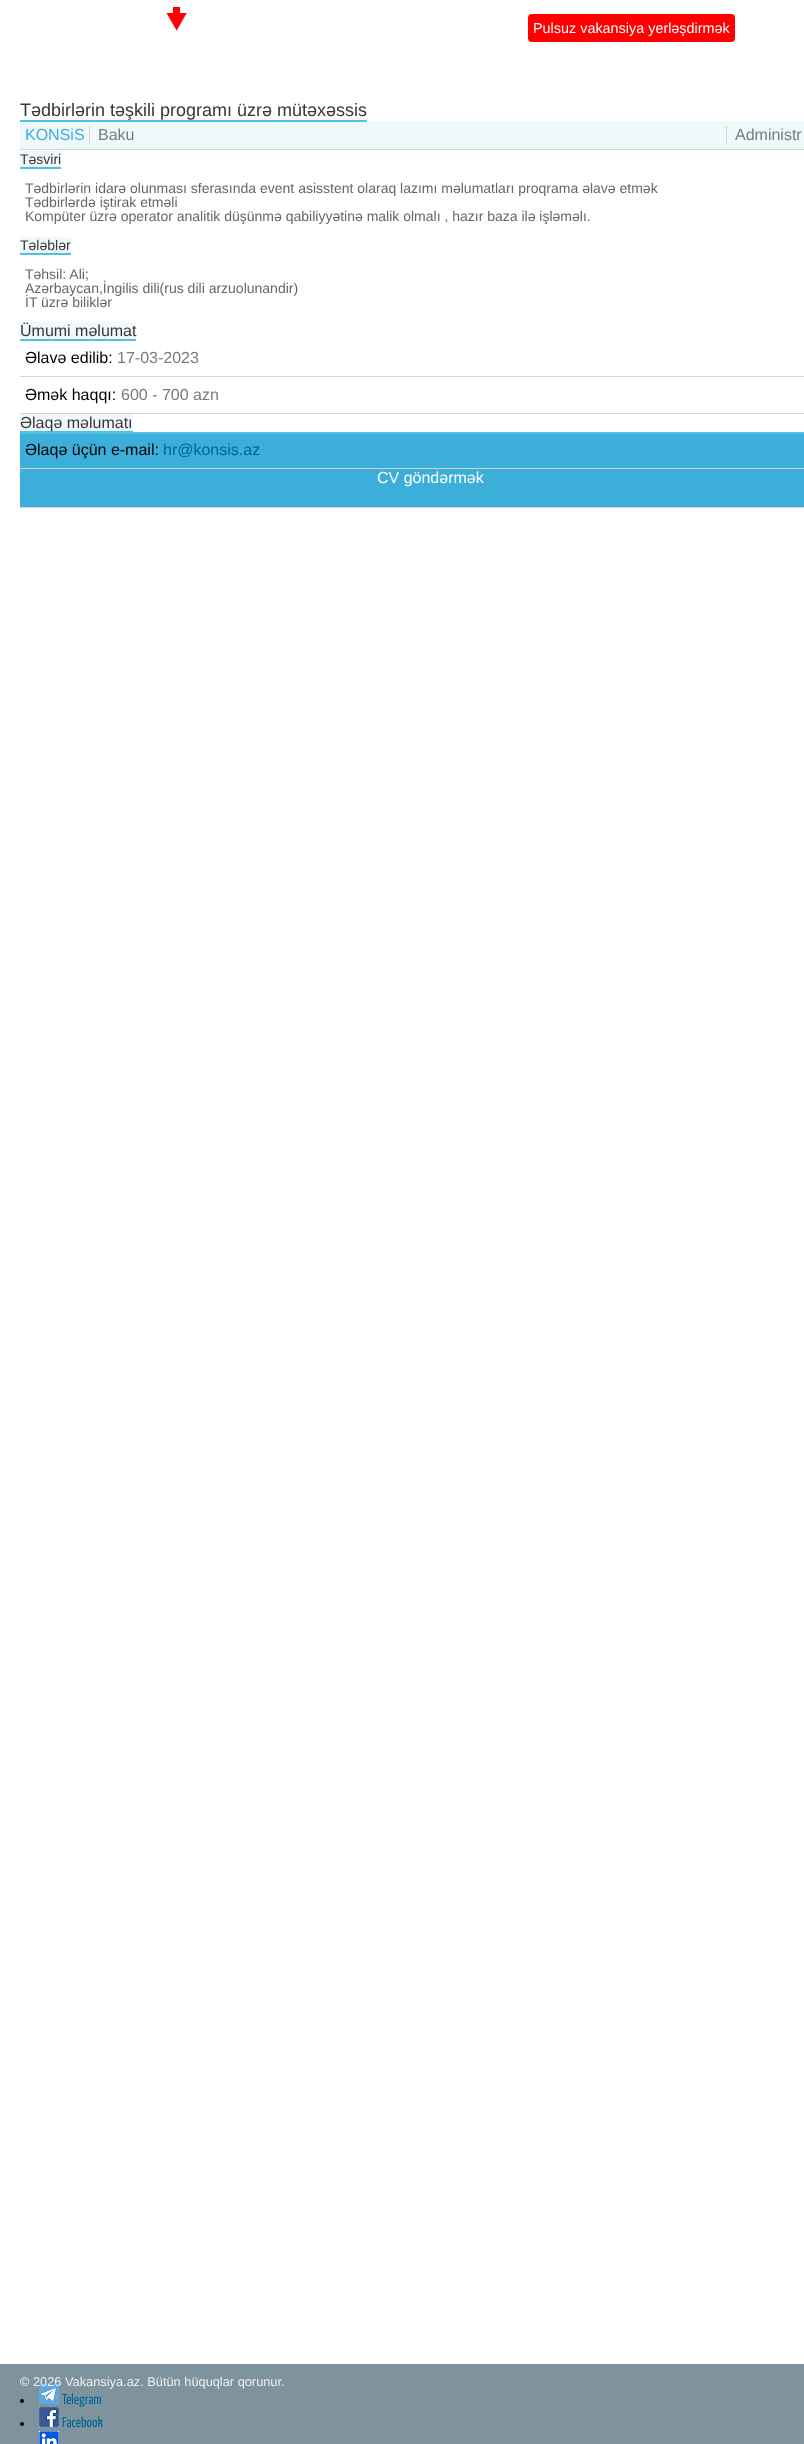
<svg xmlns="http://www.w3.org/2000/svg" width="804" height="2444">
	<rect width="100%" height="100%" fill="#FFFFFF" />
	<image x="166" y="7" width="21" height="24" href="assets/img1.png" />
	<rect x="528" y="14" width="207" height="28" rx="4" fill="#FF0000" />
	<text x="533" y="33" font-family="Liberation Sans" font-size="14.4" fill="#FFFFFF">Pulsuz vakansiya yerləşdirmək</text>
	<text x="20" y="116" font-family="Liberation Sans" font-size="18" fill="#3C3435">Tədbirlərin təşkili programı üzrə mütəxəssis</text>
	<rect x="20" y="121" width="784" height="28" fill="#EFF8FB" />
	<rect x="20" y="120" width="347" height="2" fill="#4FC0E8" />
	<rect x="20" y="149" width="784" height="1" fill="#D4D4D5" />
	<text x="25" y="140" font-family="Liberation Sans" font-size="16" fill="#3BAEDA">KONSiS</text>
	<text x="98" y="140" font-family="Liberation Sans" font-size="16" fill="#797B7E">Baku</text>
	<rect x="89" y="126" width="1" height="17" fill="#D4D4D5" />
	<rect x="726" y="126" width="1" height="18" fill="#D4D4D5" />
	<text x="735" y="140" font-family="Liberation Sans" font-size="16" fill="#797B7E">Administr</text>
	<rect x="20" y="151" width="41" height="16" fill="#EFF8FB" />
	<text x="20" y="164" font-family="Liberation Sans" font-size="14" fill="#3C3435">Təsviri</text>
	<rect x="20" y="167" width="41" height="2" fill="#4FC0E8" />
	<g font-family="Liberation Sans" font-size="14" fill="#666666">
		<text x="25" y="193">Tədbirlərin idarə olunması sferasında event asisstent olaraq lazımı məlumatları proqrama əlavə etmək</text>
		<text x="25" y="207">Tədbirlərdə iştirak etməli</text>
		<text x="25" y="221">Kompüter üzrə operator analitik düşünmə qabiliyyətinə malik olmalı , hazır baza ilə işləməlı.</text>
	</g>
	<rect x="20" y="237" width="51" height="16" fill="#EFF8FB" />
	<text x="20" y="250" font-family="Liberation Sans" font-size="14" fill="#3C3435">Tələblər</text>
	<rect x="20" y="253" width="51" height="2" fill="#4FC0E8" />
	<g font-family="Liberation Sans" font-size="14" fill="#666666">
		<text x="25" y="279">Təhsil: Ali;</text>
		<text x="25" y="293">Azərbaycan,İngilis dili(rus dili arzuolunandir)</text>
		<text x="25" y="307">İT üzrə biliklər</text>
	</g>
	<rect x="20" y="322" width="116" height="17" fill="#EFF8FB" />
	<text x="20" y="336" font-family="Liberation Sans" font-size="16" fill="#3C3435">Ümumi məlumat</text>
	<rect x="20" y="339" width="116" height="2" fill="#4FC0E8" />
	<rect x="20" y="376" width="784" height="1" fill="#D4D4D5" />
	<text x="25" y="363" font-family="Liberation Sans" font-size="16" fill="#000000">Əlavə edilib:</text>
	<text x="117" y="363" font-family="Liberation Sans" font-size="16" fill="#797B7E">17-03-2023</text>
	<rect x="20" y="413" width="784" height="1" fill="#D4D4D5" />
	<text x="25" y="400" font-family="Liberation Sans" font-size="16" fill="#000000">Əmək haqqı:</text>
	<text x="121" y="400" font-family="Liberation Sans" font-size="16" fill="#797B7E">600 - 700 azn</text>
	<rect x="20" y="414" width="113" height="17" fill="#EFF8FB" />
	<rect x="20" y="431" width="113" height="1" fill="#4FC0E8" />
	<text x="20" y="428" font-family="Liberation Sans" font-size="16" fill="#3C3435">Əlaqə məlumatı</text>
	<rect x="20" y="434" width="784" height="73" fill="#3BAEDA" />
	<rect x="20" y="468" width="784" height="1" fill="#D4D4D5" />
	<text x="25" y="455" font-family="Liberation Sans" font-size="16" fill="#000000">Əlaqə üçün e-mail:</text>
	<text x="163" y="455" font-family="Liberation Sans" font-size="16" fill="#006699">hr@konsis.az</text>
	<rect x="20" y="432" width="784" height="2" fill="#4FC0E8" />
	<text x="377" y="483" font-family="Liberation Sans" font-size="16" fill="#FFFFFF">CV göndərmək</text>
	<rect x="20" y="507" width="784" height="1" fill="#D4D4D5" />
	<rect x="0" y="2364" width="804" height="80" fill="#7E939D" />
	<image x="39" y="2384" width="20" height="20" href="assets/img2.png" />
	<text x="20" y="2386" font-family="Liberation Sans" font-size="12.8" fill="#EEEEEE">© 2026 Vakansiya.az. Bütün hüquqlar qorunur.</text>
	<circle cx="22" cy="2401" r="2" fill="#000000" />
	<text x="62" y="2404" font-family="Yanone Kaffeesatz" font-size="14.4" font-weight="200" fill="#006699">Telegram</text>
	<circle cx="22" cy="2424" r="2" fill="#000000" />
	<image x="39" y="2407" width="20" height="20" href="assets/img3.png" />
	<text x="62" y="2427" font-family="Yanone Kaffeesatz" font-size="14.4" font-weight="200" fill="#006699">Facebook</text>
	<image x="39" y="2431" width="20" height="13" href="assets/img4.png" />
</svg>
